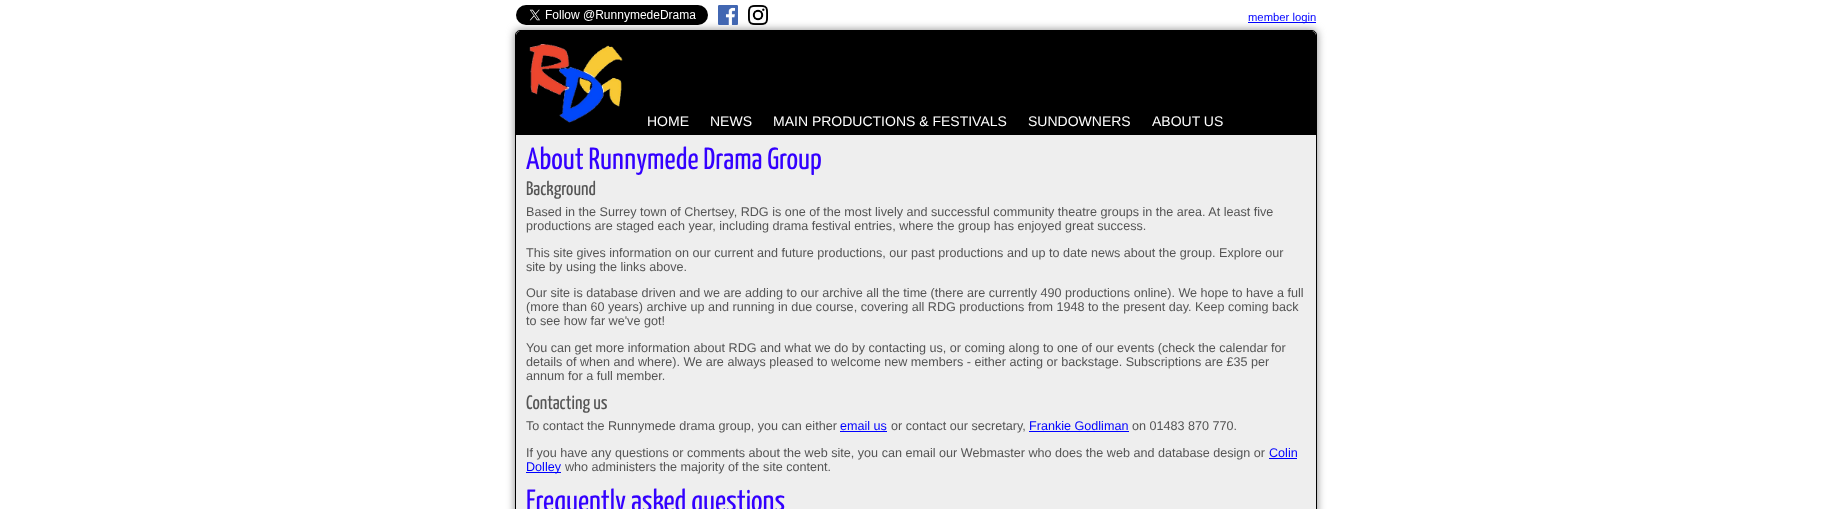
<svg xmlns="http://www.w3.org/2000/svg" width="1832" height="509">
	<rect width="100%" height="100%" fill="#FFFFFF" />
	<rect x="515" y="30" width="802" height="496" rx="5" fill="#888888" filter="blur(4px)" />
	<image x="516" y="5" width="192" height="20" href="assets/img1.png" />
	<image x="718" y="5" width="20" height="20" href="assets/img2.png" />
	<image x="748" y="5" width="20" height="20" href="assets/img3.png" />
	<rect x="1248" y="22" width="68" height="1" fill="#0000FF" />
	<text x="1248" y="21" font-family="Liberation Sans" font-size="11.25" fill="#0000FF">member login</text>
	<rect x="515.5" y="30.5" width="801" height="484" rx="4.5" fill="#EEEEEE" stroke="#000000" />
	<path d="M521 31H1311C1314 31 1316 33 1316 36V135H516V36C516 33 518 31 521 31Z" fill="#000000" />
	<image x="529" y="44" width="94" height="79" href="assets/img4.png" />
	<g font-family="Liberation Sans" font-size="14" fill="#FFFFFF">
		<text x="647" y="126">HOME</text>
		<text x="710" y="126">NEWS</text>
		<text x="773" y="126">MAIN PRODUCTIONS &amp; FESTIVALS</text>
		<text x="1028" y="126">SUNDOWNERS</text>
		<text x="1152" y="126">ABOUT US</text>
	</g>
	<text x="526" y="169" font-family="Yanone Kaffeesatz" font-size="30.75" fill="#3300FF">About Runnymede Drama Group</text>
	<text x="526" y="195" font-family="Yanone Kaffeesatz" font-size="19.5" fill="#555555">Background</text>
	<g font-family="Liberation Sans" font-size="12.6" fill="#555555">
		<text x="526" y="216">Based in the Surrey town of Chertsey, RDG is one of the most lively and successful community theatre groups in the area. At least five</text>
		<text x="526" y="230">productions are staged each year, including drama festival entries, where the group has enjoyed great success.</text>
		<text x="526" y="257">This site gives information on our current and future productions, our past productions and up to date news about the group. Explore our</text>
		<text x="526" y="271">site by using the links above.</text>
		<text x="526" y="297">Our site is database driven and we are adding to our archive all the time (there are currently 490 productions online). We hope to have a full</text>
		<text x="526" y="311">(more than 60 years) archive up and running in due course, covering all RDG productions from 1948 to the present day. Keep coming back</text>
		<text x="526" y="325">to see how far we've got!</text>
		<text x="526" y="352">You can get more information about RDG and what we do by contacting us, or coming along to one of our events (check the calendar for</text>
		<text x="526" y="366">details of when and where). We are always pleased to welcome new members - either acting or backstage. Subscriptions are £35 per</text>
		<text x="526" y="380">annum for a full member.</text>
	</g>
	<text x="526" y="409" font-family="Yanone Kaffeesatz" font-size="19.5" fill="#555555">Contacting us</text>
	<text x="526" y="430" font-family="Liberation Sans" font-size="12.6" fill="#555555">To contact the Runnymede drama group, you can either</text>
	<text x="840" y="430" font-family="Liberation Sans" font-size="12.6" fill="#0000FF">email us</text>
	<rect x="840" y="431" width="47" height="1" fill="#0000FF" />
	<text x="891" y="430" font-family="Liberation Sans" font-size="12.6" fill="#555555">or contact our secretary,</text>
	<text x="1029" y="430" font-family="Liberation Sans" font-size="12.6" fill="#0000FF">Frankie Godliman</text>
	<rect x="1029" y="431" width="100" height="1" fill="#0000FF" />
	<g font-family="Liberation Sans" font-size="12.6" fill="#555555">
		<text x="1132" y="430">on 01483 870 770.</text>
		<text x="526" y="457">If you have any questions or comments about the web site, you can email our Webmaster who does the web and database design or</text>
	</g>
	<text x="1269" y="457" font-family="Liberation Sans" font-size="12.6" fill="#0000FF">Colin</text>
	<rect x="1269" y="458" width="28" height="1" fill="#0000FF" />
	<rect x="526" y="472" width="35" height="1" fill="#0000FF" />
	<text x="526" y="471" font-family="Liberation Sans" font-size="12.6" fill="#0000FF">Dolley</text>
	<text x="565" y="471" font-family="Liberation Sans" font-size="12.6" fill="#555555">who administers the majority of the site content.</text>
	<text x="526" y="511" font-family="Yanone Kaffeesatz" font-size="30.75" fill="#3300FF">Frequently asked questions</text>
</svg>
